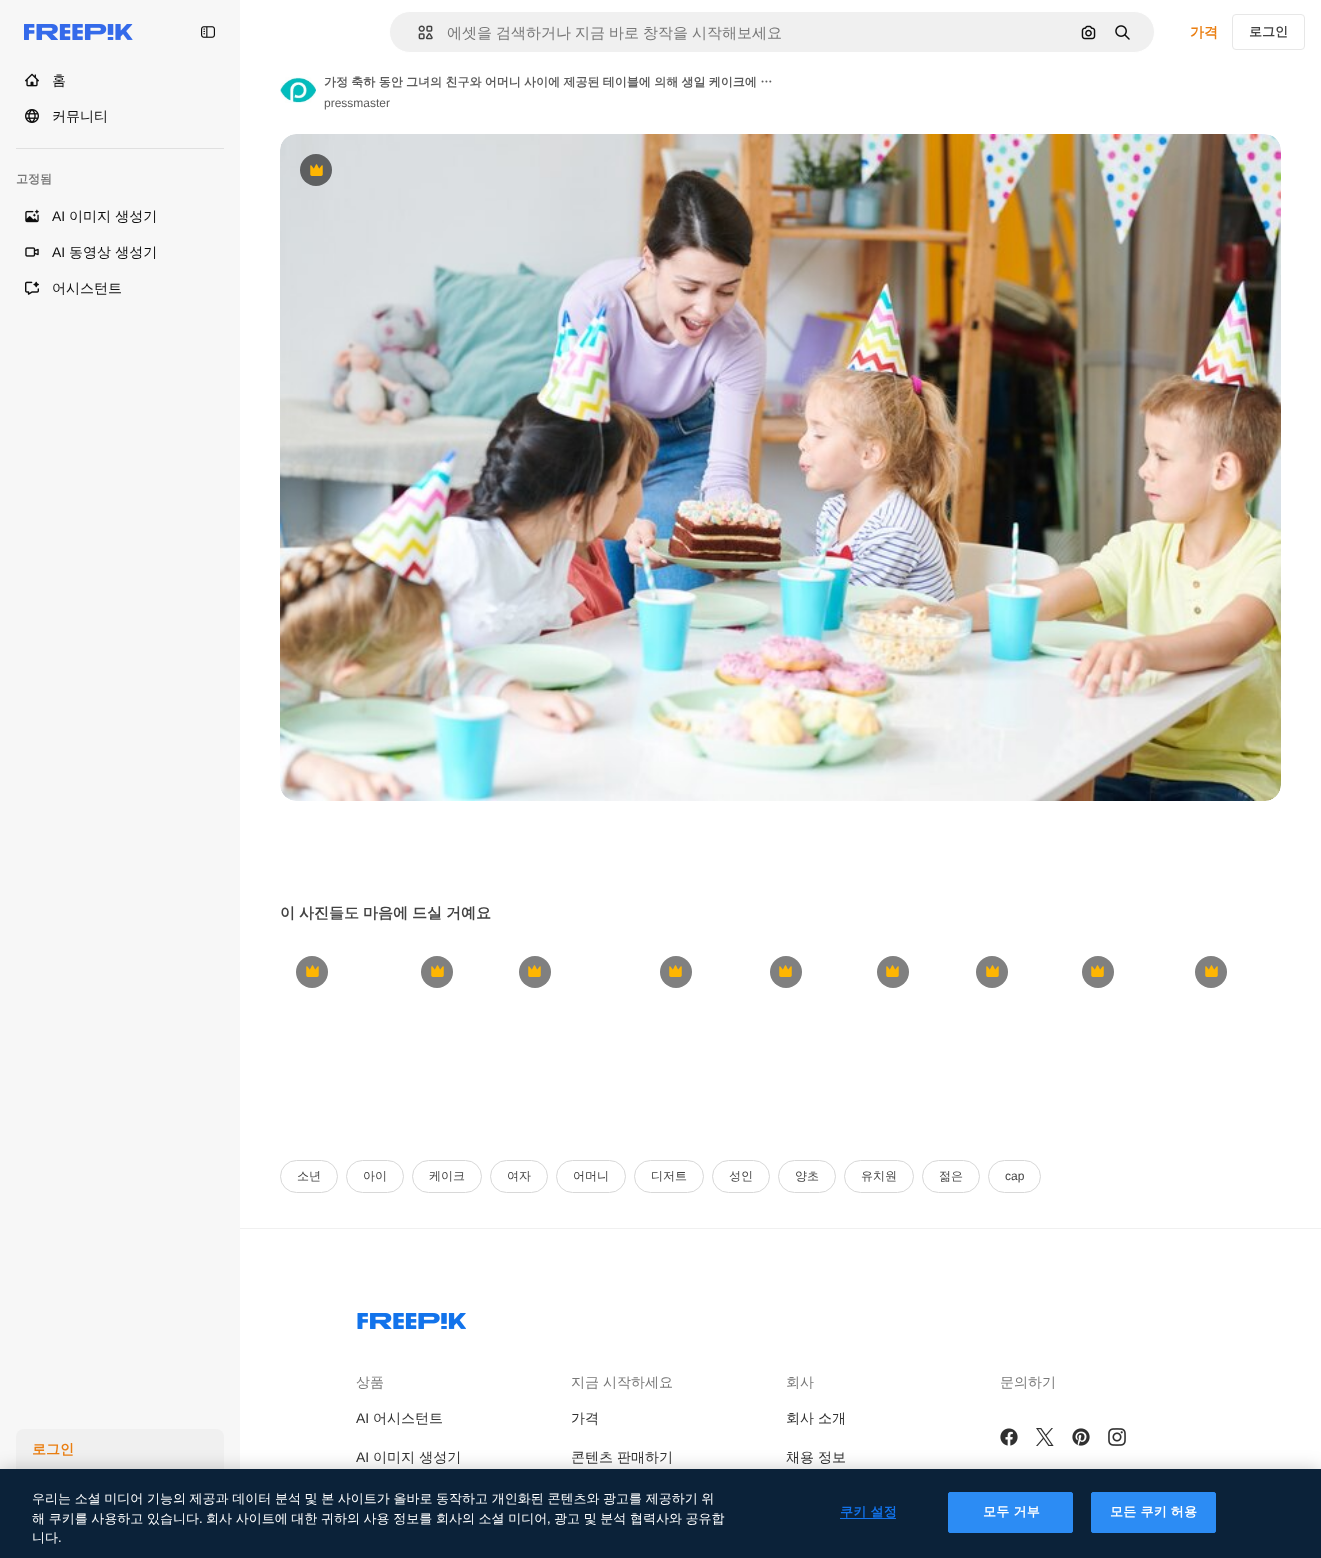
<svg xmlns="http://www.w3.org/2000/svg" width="1321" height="1558">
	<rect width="100%" height="100%" fill="#FFFFFF" />
	<rect x="0" y="0" width="240" height="1469" fill="#F7F7F7" />
	<image x="24" y="24" width="109" height="16" href="assets/img1.png" />
	<image x="201" y="26" width="14" height="12" href="assets/img2.png" />
	<image x="25" y="73" width="14" height="14" href="assets/img3.png" />
	<text x="52" y="85" font-family="WenQuanYi Zen Hei" font-size="14" font-weight="500" fill="#0D0D0D">홈</text>
	<image x="25" y="109" width="14" height="14" href="assets/img4.png" />
	<text x="52" y="121" font-family="WenQuanYi Zen Hei" font-size="14" font-weight="500" fill="#0D0D0D">커뮤니티</text>
	<rect x="16" y="148" width="208" height="1" fill="#E0E0E0" />
	<text x="16" y="183" font-family="WenQuanYi Zen Hei" font-size="12" font-weight="700" fill="#787878">고정됨</text>
	<image x="25" y="209" width="14" height="14" href="assets/img5.png" />
	<text x="52" y="221" font-family="Liberation Sans" font-size="14" fill="#0D0D0D">AI</text>
	<text x="69" y="221" font-family="WenQuanYi Zen Hei" font-size="14" font-weight="500" fill="#0D0D0D">이미지 생성기</text>
	<image x="25" y="247" width="14" height="10" href="assets/img6.png" />
	<text x="52" y="257" font-family="Liberation Sans" font-size="14" fill="#0D0D0D">AI</text>
	<text x="69" y="257" font-family="WenQuanYi Zen Hei" font-size="14" font-weight="500" fill="#0D0D0D">동영상 생성기</text>
	<image x="25" y="281" width="14" height="14" href="assets/img7.png" />
	<text x="52" y="293" font-family="WenQuanYi Zen Hei" font-size="14" font-weight="500" fill="#0D0D0D">어시스턴트</text>
	<rect x="16" y="1429" width="208" height="65" rx="8" fill="#F0F0F0" />
	<text x="32" y="1454" font-family="WenQuanYi Zen Hei" font-size="14" font-weight="700" fill="#EA7E11">로그인</text>
	<rect x="389.5" y="11.5" width="765" height="41" rx="20.5" fill="#F0F0F0" stroke="#FFFFFF" />
	<image x="418" y="25" width="15" height="15" href="assets/img8.png" />
	<text x="447" y="38" word-spacing="-0.5" font-family="WenQuanYi Zen Hei" font-size="15" font-weight="500" fill="#787878">에셋을 검색하거나 지금 바로 창작을 시작해보세요</text>
	<image x="1081" y="25" width="15" height="15" href="assets/img9.png" />
	<image x="1115" y="25" width="15" height="15" href="assets/img10.png" />
	<text x="1190" y="37" font-family="WenQuanYi Zen Hei" font-size="14" font-weight="700" fill="#EA7E11">가격</text>
	<rect x="1232.5" y="14.5" width="72" height="35" rx="3.5" fill="none" stroke="#E7E7E7" />
	<text x="1249" y="36" font-family="WenQuanYi Zen Hei" font-size="13" font-weight="700" fill="#424242">로그인</text>
	<image x="280" y="77" width="36" height="26" href="assets/img11.png" />
	<text x="324" y="86" word-spacing="-0.25" font-family="WenQuanYi Zen Hei" font-size="12" font-weight="700" fill="#5C5C5C">가정 축하 동안 그녀의 친구와 어머니 사이에 제공된 테이블에 의해 생일 케이크에 …</text>
	<text x="324" y="107" font-family="Liberation Sans" font-size="12" fill="#5C5C5C">pressmaster</text>
	<image x="280" y="134" width="1001" height="667" href="assets/img12.png" />
	<circle cx="316" cy="170" r="16" fill="#0D0D0D" fill-opacity="0.6" />
	<image x="310" y="164" width="13" height="12" href="assets/img13.png" />
	<text x="280" y="918" word-spacing="-0.5" font-family="WenQuanYi Zen Hei" font-size="15" font-weight="700" fill="#424242">이 사진들도 마음에 드실 거예요</text>
	<circle cx="312" cy="972" r="16" fill="#808080" />
	<image x="306" y="965" width="13" height="12" href="assets/img14.png" />
	<circle cx="437" cy="972" r="16" fill="#808080" />
	<image x="431" y="965" width="13" height="12" href="assets/img14.png" />
	<circle cx="535" cy="972" r="16" fill="#808080" />
	<image x="528" y="965" width="13" height="12" href="assets/img14.png" />
	<circle cx="676" cy="972" r="16" fill="#808080" />
	<image x="669" y="965" width="13" height="12" href="assets/img14.png" />
	<circle cx="786" cy="972" r="16" fill="#808080" />
	<image x="779" y="965" width="13" height="12" href="assets/img14.png" />
	<circle cx="893" cy="972" r="16" fill="#808080" />
	<image x="886" y="965" width="13" height="12" href="assets/img14.png" />
	<circle cx="992" cy="972" r="16" fill="#808080" />
	<image x="986" y="965" width="13" height="12" href="assets/img14.png" />
	<circle cx="1098" cy="972" r="16" fill="#808080" />
	<image x="1091" y="965" width="13" height="12" href="assets/img14.png" />
	<circle cx="1211" cy="972" r="16" fill="#808080" />
	<image x="1205" y="965" width="13" height="12" href="assets/img14.png" />
	<rect x="280.5" y="1160.5" width="57" height="32" rx="16" fill="none" stroke="#D8D8D8" />
	<text x="297" y="1180" font-family="WenQuanYi Zen Hei" font-size="12" font-weight="500" fill="#424242">소년</text>
	<rect x="346.5" y="1160.5" width="57" height="32" rx="16" fill="none" stroke="#D8D8D8" />
	<text x="363" y="1180" font-family="WenQuanYi Zen Hei" font-size="12" font-weight="500" fill="#424242">아이</text>
	<rect x="412.5" y="1160.5" width="69" height="32" rx="16" fill="none" stroke="#D8D8D8" />
	<text x="429" y="1180" font-family="WenQuanYi Zen Hei" font-size="12" font-weight="500" fill="#424242">케이크</text>
	<rect x="490.5" y="1160.5" width="57" height="32" rx="16" fill="none" stroke="#D8D8D8" />
	<text x="507" y="1180" font-family="WenQuanYi Zen Hei" font-size="12" font-weight="500" fill="#424242">여자</text>
	<rect x="556.5" y="1160.5" width="69" height="32" rx="16" fill="none" stroke="#D8D8D8" />
	<text x="573" y="1180" font-family="WenQuanYi Zen Hei" font-size="12" font-weight="500" fill="#424242">어머니</text>
	<rect x="634.5" y="1160.5" width="69" height="32" rx="16" fill="none" stroke="#D8D8D8" />
	<text x="651" y="1180" font-family="WenQuanYi Zen Hei" font-size="12" font-weight="500" fill="#424242">디저트</text>
	<rect x="712.5" y="1160.5" width="57" height="32" rx="16" fill="none" stroke="#D8D8D8" />
	<text x="729" y="1180" font-family="WenQuanYi Zen Hei" font-size="12" font-weight="500" fill="#424242">성인</text>
	<rect x="778.5" y="1160.5" width="57" height="32" rx="16" fill="none" stroke="#D8D8D8" />
	<text x="795" y="1180" font-family="WenQuanYi Zen Hei" font-size="12" font-weight="500" fill="#424242">양초</text>
	<rect x="844.5" y="1160.5" width="69" height="32" rx="16" fill="none" stroke="#D8D8D8" />
	<text x="861" y="1180" font-family="WenQuanYi Zen Hei" font-size="12" font-weight="500" fill="#424242">유치원</text>
	<rect x="922.5" y="1160.5" width="57" height="32" rx="16" fill="none" stroke="#D8D8D8" />
	<text x="939" y="1180" font-family="WenQuanYi Zen Hei" font-size="12" font-weight="500" fill="#424242">젊은</text>
	<rect x="988.5" y="1160.5" width="52" height="32" rx="16" fill="none" stroke="#D8D8D8" />
	<text x="1005" y="1180" font-family="Liberation Sans" font-size="12" fill="#424242">cap</text>
	<rect x="240" y="1228" width="1081" height="1" fill="#F0F0F0" />
	<image x="357" y="1313" width="109" height="16" href="assets/img15.png" />
	<text x="356" y="1387" font-family="WenQuanYi Zen Hei" font-size="14" font-weight="500" fill="#787878">상품</text>
	<text x="356" y="1423" font-family="Liberation Sans" font-size="14" fill="#303030">AI</text>
	<text x="373" y="1423" font-family="WenQuanYi Zen Hei" font-size="14" font-weight="500" fill="#303030">어시스턴트</text>
	<text x="356" y="1462" font-family="Liberation Sans" font-size="14" fill="#303030">AI</text>
	<text x="373" y="1462" font-family="WenQuanYi Zen Hei" font-size="14" font-weight="500" fill="#303030">이미지 생성기</text>
	<text x="571" y="1387" word-spacing="-0.25" font-family="WenQuanYi Zen Hei" font-size="14" font-weight="500" fill="#787878">지금 시작하세요</text>
	<g font-family="WenQuanYi Zen Hei" font-size="14" font-weight="500" fill="#303030">
		<text x="571" y="1423">가격</text>
		<text x="571" y="1462" word-spacing="-0.25">콘텐츠 판매하기</text>
	</g>
	<text x="786" y="1387" font-family="WenQuanYi Zen Hei" font-size="14" font-weight="500" fill="#787878">회사</text>
	<g font-family="WenQuanYi Zen Hei" font-size="14" font-weight="500" fill="#303030">
		<text x="786" y="1423" word-spacing="-0.25">회사 소개</text>
		<text x="786" y="1462" word-spacing="-0.25">채용 정보</text>
	</g>
	<text x="1000" y="1387" font-family="WenQuanYi Zen Hei" font-size="14" font-weight="500" fill="#787878">문의하기</text>
	<image x="1000" y="1428" width="18" height="18" href="assets/img16.png" />
	<image x="1036" y="1428" width="18" height="18" href="assets/img17.png" />
	<image x="1072" y="1428" width="18" height="18" href="assets/img18.png" />
	<image x="1108" y="1428" width="18" height="18" href="assets/img19.png" />
	<rect x="0" y="1469" width="1321" height="89" fill="#000000" fill-opacity="0.2" filter="blur(9px)" />
	<rect x="0" y="1469" width="1321" height="89" fill="#0B2239" />
	<g font-family="WenQuanYi Zen Hei" font-size="13" font-weight="500" fill="#FFFFFF">
		<text x="32" y="1503" word-spacing="-0.25">우리는 소셜 미디어 기능의 제공과 데이터 분석 및 본 사이트가 올바로 동작하고 개인화된 콘텐츠와 광고를 제공하기 위</text>
		<text x="32" y="1523" word-spacing="-0.25">해 쿠키를 사용하고 있습니다</text>
	</g>
	<text x="199" y="1523" font-family="Liberation Sans" font-size="13" fill="#FFFFFF">.</text>
	<text x="206" y="1523" word-spacing="-0.25" font-family="WenQuanYi Zen Hei" font-size="13" font-weight="500" fill="#FFFFFF">회사 사이트에 대한 귀하의 사용 정보를 회사의 소셜 미디어</text>
	<text x="547" y="1523" font-family="Liberation Sans" font-size="13" fill="#FFFFFF">,</text>
	<g font-family="WenQuanYi Zen Hei" font-size="13" font-weight="500" fill="#FFFFFF">
		<text x="554" y="1523" word-spacing="-0.25">광고 및 분석 협력사와 공유합</text>
		<text x="32" y="1542">니다</text>
	</g>
	<text x="58" y="1542" font-family="Liberation Sans" font-size="13" fill="#FFFFFF">.</text>
	<text x="840" y="1516" word-spacing="-0.25" font-family="WenQuanYi Zen Hei" font-size="13" font-weight="700" letter-spacing="0.25" fill="#1273EB">쿠키 설정</text>
	<rect x="840" y="1518" width="56" height="1" fill="#1273EB" />
	<rect x="948.5" y="1492.5" width="124" height="40" rx="1.5" fill="#2C8CF4" stroke="#2C8CF4" />
	<text x="983" y="1516" word-spacing="-0.25" font-family="WenQuanYi Zen Hei" font-size="13" font-weight="700" letter-spacing="0.25" fill="#FFFFFF">모두 거부</text>
	<rect x="1091.5" y="1492.5" width="124" height="40" rx="1.5" fill="#2C8CF4" stroke="#2C8CF4" />
	<text x="1110" y="1516" word-spacing="-0.25" font-family="WenQuanYi Zen Hei" font-size="13" font-weight="700" letter-spacing="0.25" fill="#FFFFFF">모든 쿠키 허용</text>
</svg>
